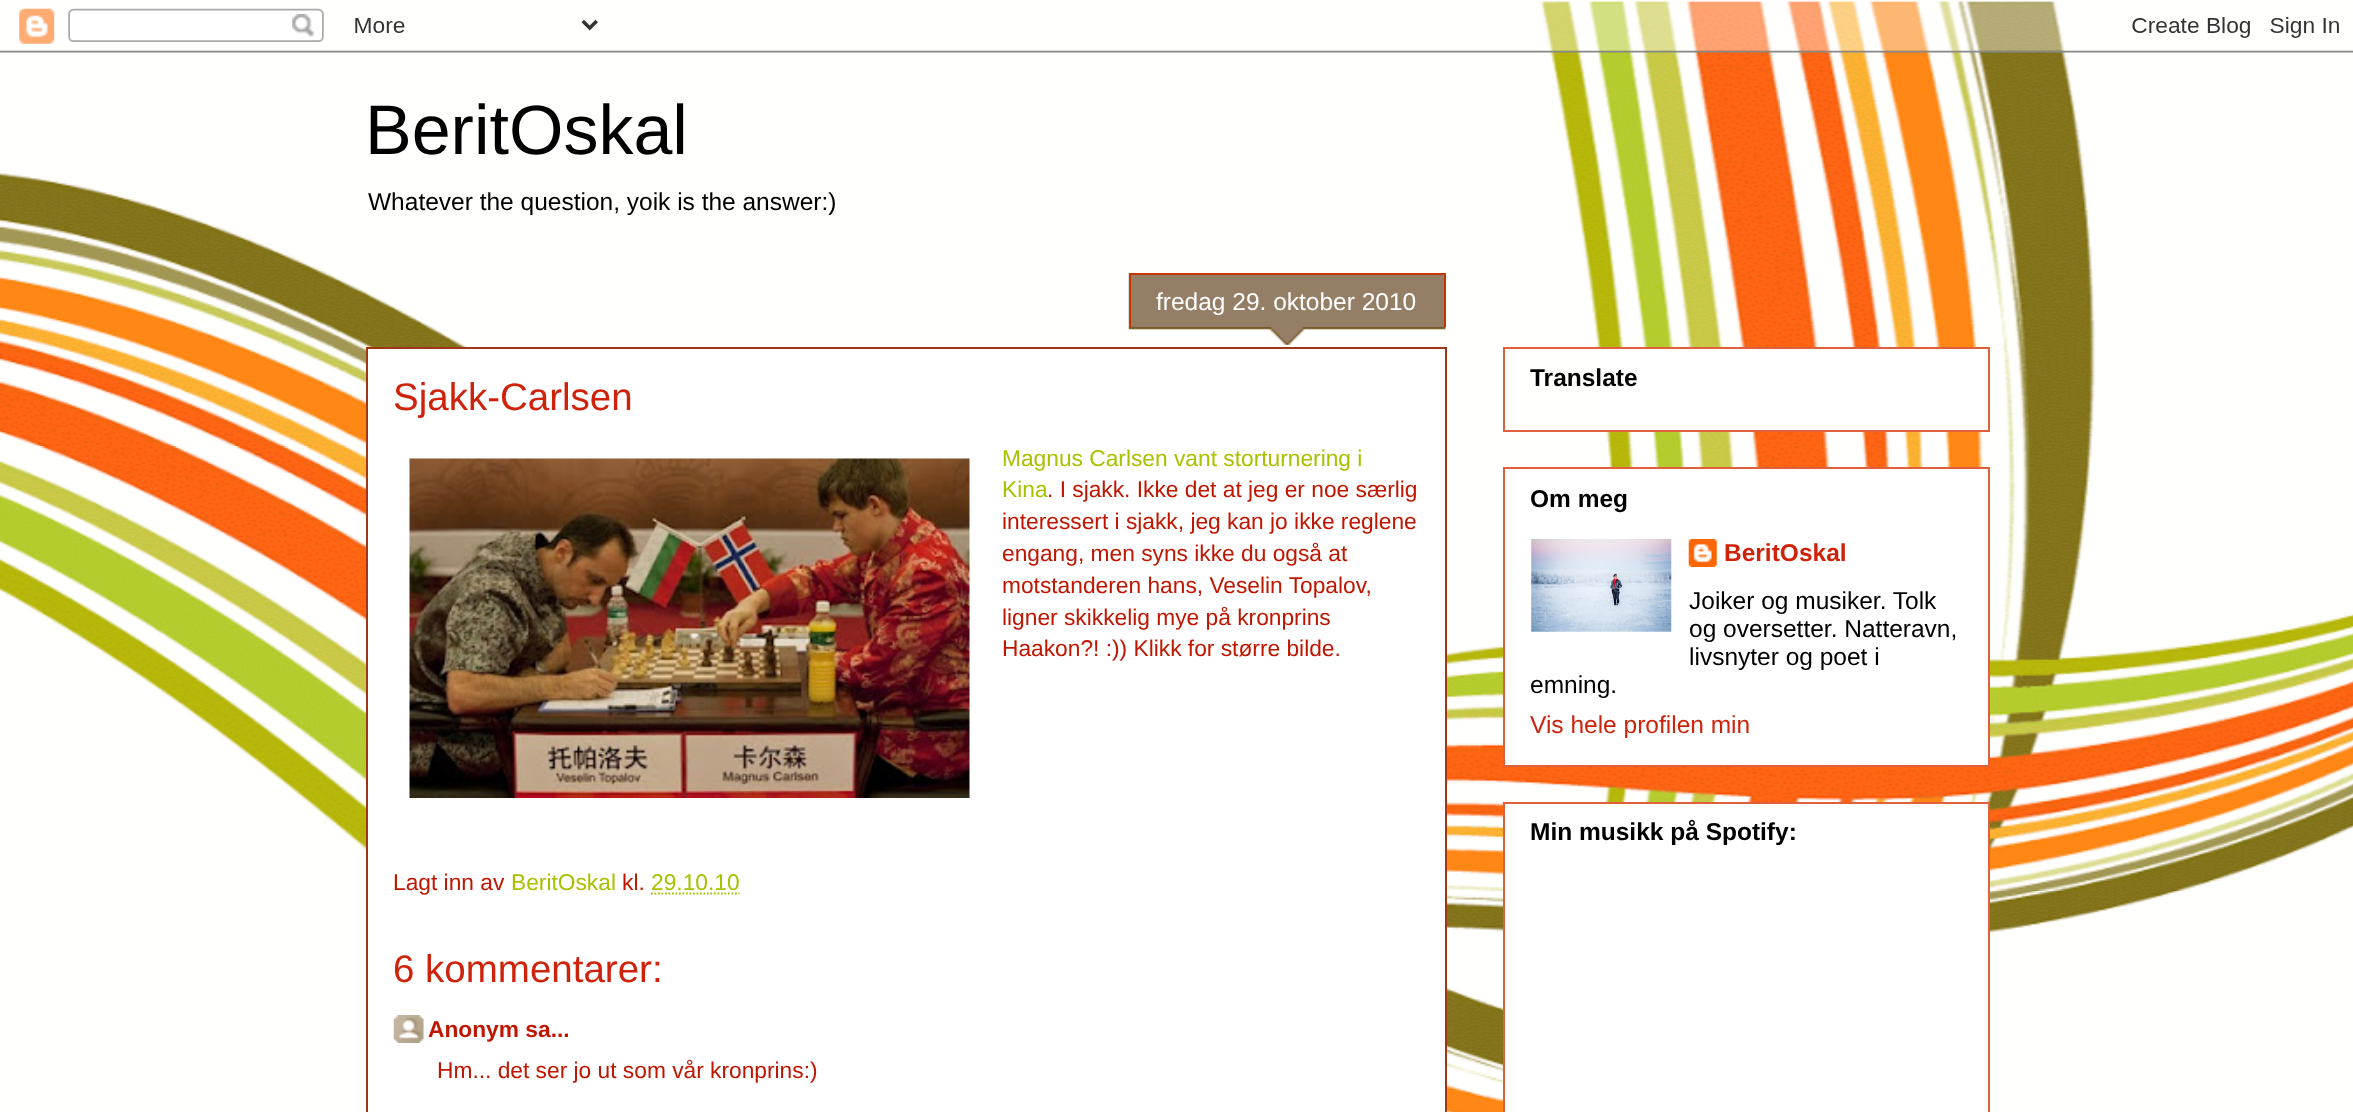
<svg xmlns="http://www.w3.org/2000/svg" width="2353" height="1112">
	<rect width="100%" height="100%" fill="#FFFFFF" />
	<image x="0" y="0" width="2353" height="1112" href="assets/img1.png" />
	<image x="0" y="0" width="2353" height="53" href="assets/img2.png" />
	<text x="365" y="154" font-family="Liberation Sans" font-size="70" fill="#000000">BeritOskal</text>
	<text x="368" y="210" font-family="Liberation Sans" font-size="24.5" fill="#000000">Whatever the question, yoik is the answer:)</text>
	<rect x="367" y="348" width="1079" height="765" fill="#FFFFFF" stroke="#A03618" stroke-width="2" />
	<image x="1128" y="273" width="318" height="72" href="assets/img3.png" />
	<rect x="1129" y="273" width="317" height="2" fill="#C53500" />
	<rect x="1444" y="275" width="2" height="52" fill="#C53500" />
	<rect x="1129" y="275" width="2" height="52" fill="#C53500" />
	<text x="1156" y="310" font-family="Liberation Sans" font-size="24.5" fill="#FFFFFF">fredag 29. oktober 2010</text>
	<text x="393" y="410" font-family="Liberation Sans" font-size="38.5" fill="#CF220A">Sjakk-Carlsen</text>
	<image x="409" y="458" width="561" height="340" href="assets/img4.png" />
	<g font-family="Liberation Sans" font-size="22.75" fill="#AAC000">
		<text x="1002" y="466">Magnus Carlsen vant storturnering i</text>
		<text x="1002" y="497">Kina</text>
	</g>
	<g font-family="Liberation Sans" font-size="22.75" fill="#C01600">
		<text x="1047" y="497">. I sjakk. Ikke det at jeg er noe særlig</text>
		<text x="1002" y="529">interessert i sjakk, jeg kan jo ikke reglene</text>
		<text x="1002" y="561">engang, men syns ikke du også at</text>
		<text x="1002" y="593">motstanderen hans, Veselin Topalov,</text>
		<text x="1002" y="625">ligner skikkelig mye på kronprins</text>
		<text x="1002" y="656">Haakon?! :)) Klikk for større bilde.</text>
		<text x="393" y="890">Lagt inn av</text>
	</g>
	<text x="511" y="890" font-family="Liberation Sans" font-size="22.75" fill="#AAC000">BeritOskal</text>
	<text x="622" y="890" font-family="Liberation Sans" font-size="22.75" fill="#C01600">kl.</text>
	<text x="651" y="890" font-family="Liberation Sans" font-size="22.75" fill="#AAC000">29.10.10</text>
	<path d="M651 893.5H739.5" fill="none" stroke="#AAC000" stroke-width="1.8" stroke-dasharray="1.75 1.75" />
	<text x="393" y="982" font-family="Liberation Sans" font-size="38.5" fill="#CF220A">6 kommentarer:</text>
	<image x="393" y="1015" width="31" height="28" href="assets/img5.png" />
	<text x="428" y="1037" font-family="Liberation Sans" font-size="22.75" font-weight="700" fill="#C01600">Anonym sa...</text>
	<text x="437" y="1078" font-family="Liberation Sans" font-size="22.75" fill="#C01600">Hm... det ser jo ut som vår kronprins:)</text>
	<rect x="1597" y="349" width="385" height="81" fill="#FFFFFF" />
	<rect x="1504" y="348" width="485" height="83" fill="none" stroke="#E0603B" stroke-width="2" />
	<text x="1530" y="386" font-family="Liberation Sans" font-size="24.5" font-weight="700" fill="#000000">Translate</text>
	<rect x="1504" y="468" width="485" height="298" fill="#FFFFFF" stroke="#E0603B" stroke-width="2" />
	<text x="1530" y="507" font-family="Liberation Sans" font-size="24.5" font-weight="700" fill="#000000">Om meg</text>
	<image x="1531" y="539" width="141" height="93" href="assets/img6.png" />
	<image x="1688" y="539" width="29" height="28" href="assets/img7.png" />
	<text x="1724" y="561" font-family="Liberation Sans" font-size="24.5" font-weight="700" fill="#CF220A">BeritOskal</text>
	<g font-family="Liberation Sans" font-size="24.5" fill="#000000">
		<text x="1689" y="609">Joiker og musiker. Tolk</text>
		<text x="1689" y="637">og oversetter. Natteravn,</text>
		<text x="1689" y="665">livsnyter og poet i</text>
		<text x="1530" y="693">emning.</text>
	</g>
	<text x="1530" y="733" font-family="Liberation Sans" font-size="24.5" fill="#CF220A">Vis hele profilen min</text>
	<rect x="1504" y="803" width="485" height="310" fill="#FFFFFF" stroke="#E0603B" stroke-width="2" />
	<text x="1530" y="840" font-family="Liberation Sans" font-size="24.5" font-weight="700" fill="#000000">Min musikk på Spotify:</text>
</svg>
